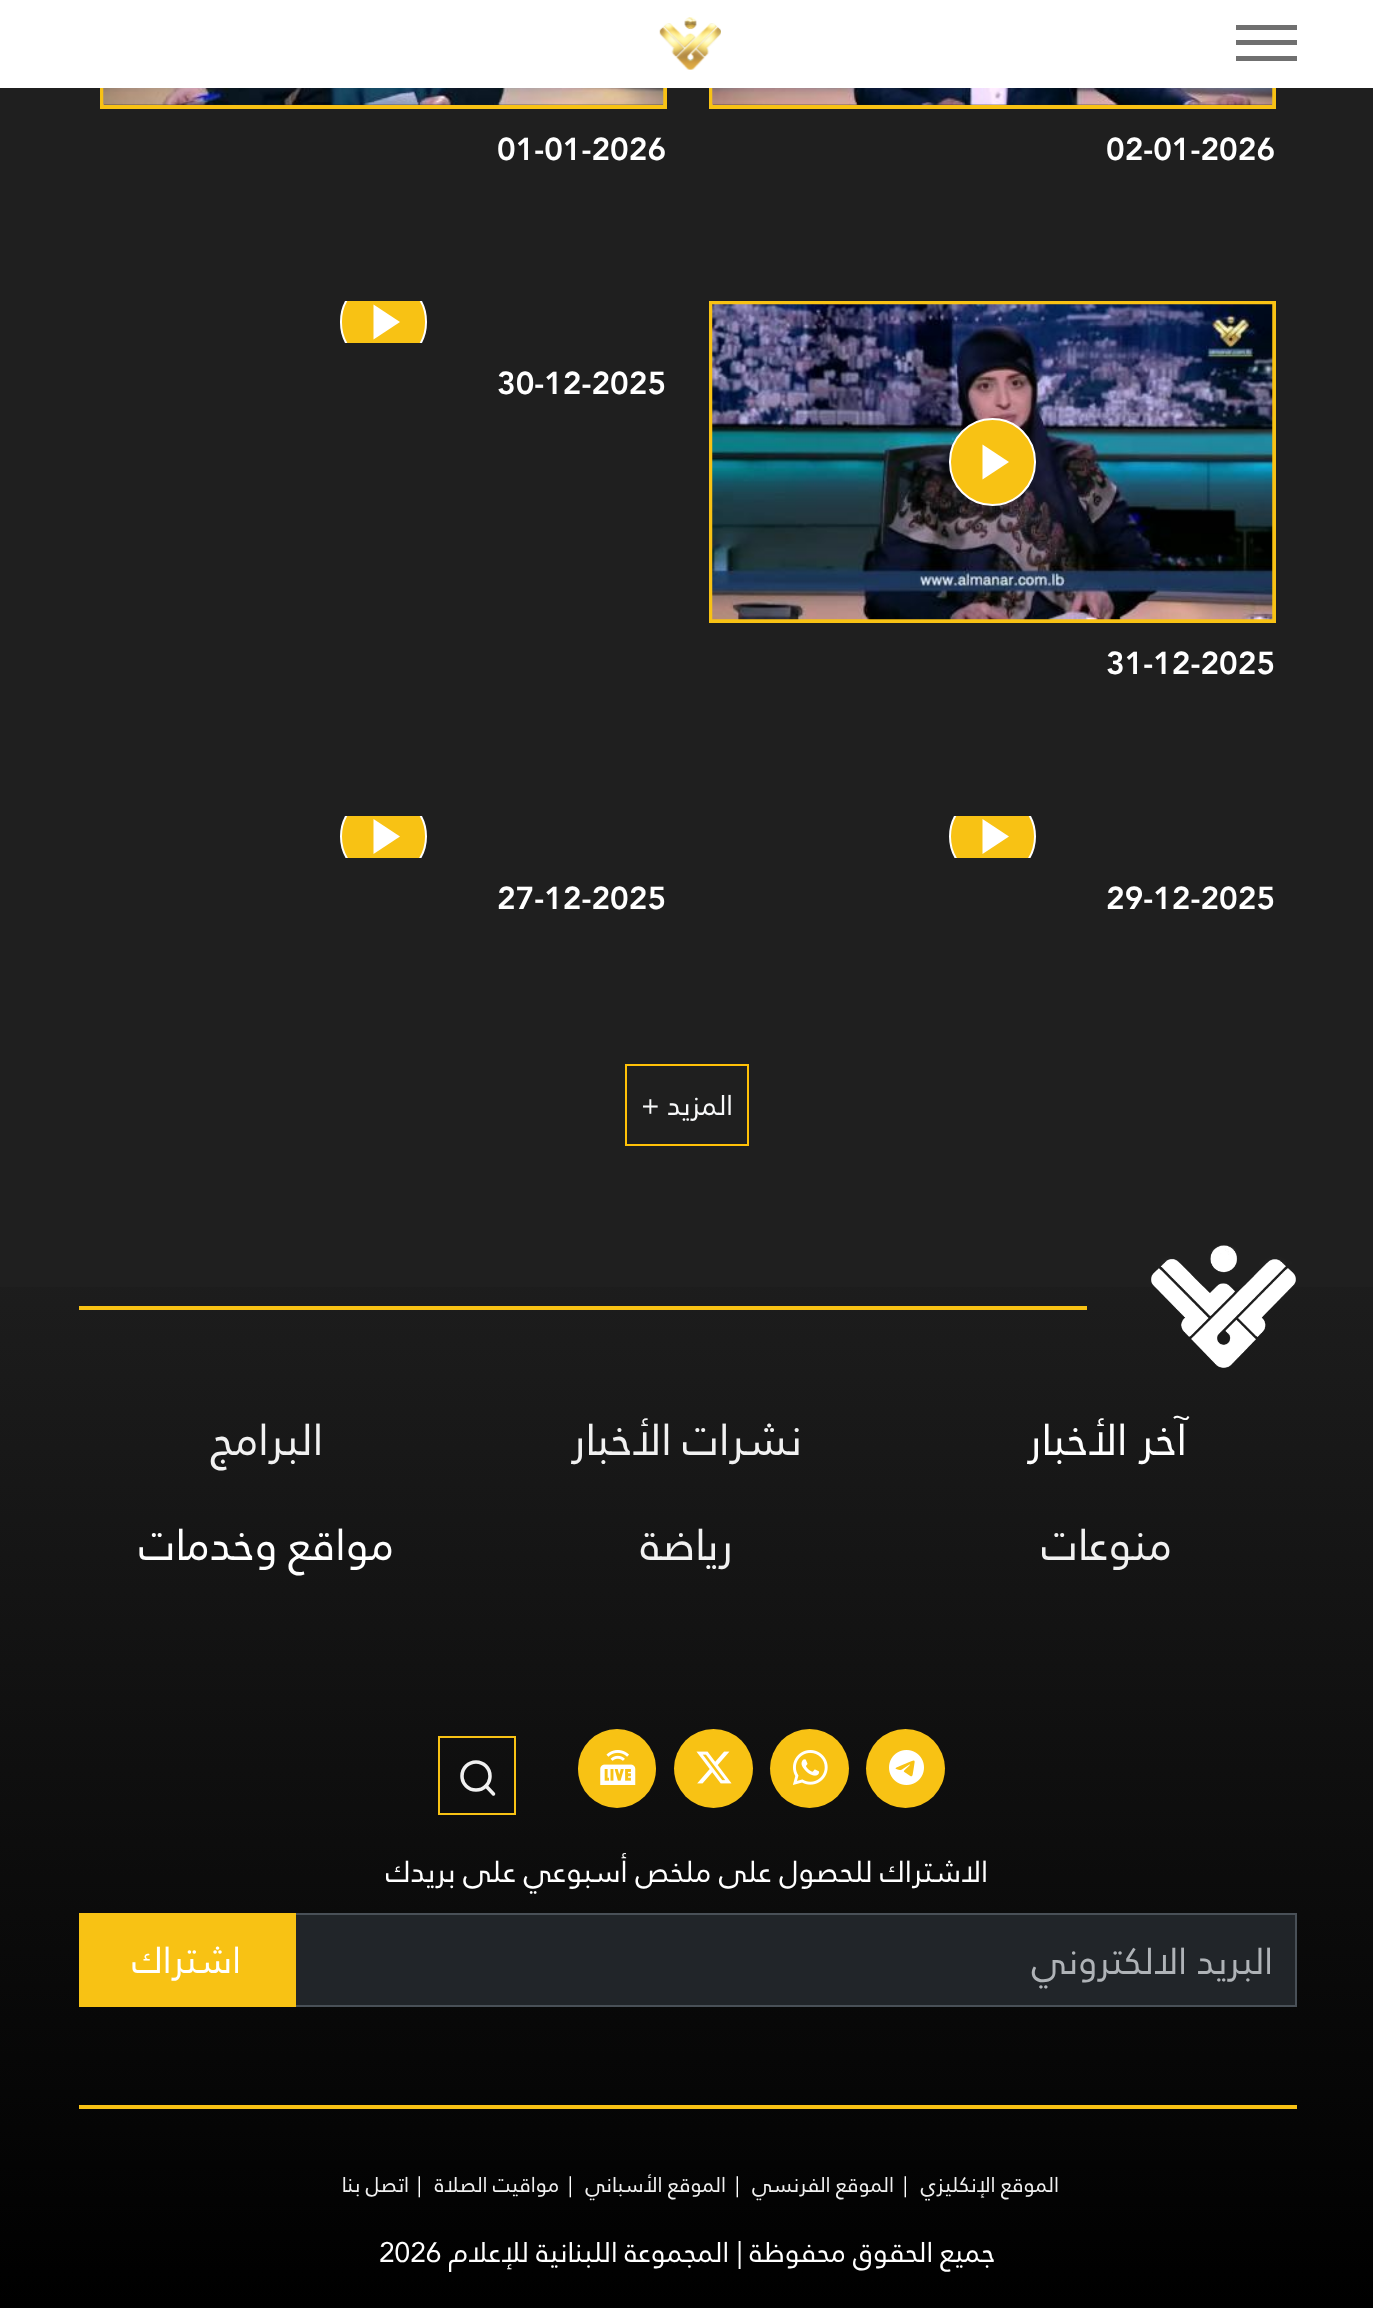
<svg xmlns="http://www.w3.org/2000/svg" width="1373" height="2308">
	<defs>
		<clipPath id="clip1"><rect x="100" y="301" width="567" height="42" /></clipPath>
		<clipPath id="clip2"><rect x="709" y="816" width="567" height="42" /></clipPath>
		<clipPath id="clip3"><rect x="100" y="816" width="567" height="42" /></clipPath>
		<linearGradient id="g1" gradientUnits="userSpaceOnUse" x1="687" y1="1197" x2="687" y2="2308"><stop offset="0" stop-color="#1F1F1F" /><stop offset="1" stop-color="#000000" /></linearGradient>
	</defs>
	<rect width="100%" height="100%" fill="#1F1F1F" />
	<rect x="711" y="-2" width="563" height="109" fill="none" stroke="#F8C214" stroke-width="4" />
	<rect x="102" y="-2" width="563" height="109" fill="none" stroke="#F8C214" stroke-width="4" />
	<rect x="0" y="0" width="1373" height="88" fill="#FFFFFF" />
	<rect x="1236" y="25" width="61" height="5" fill="#707070" />
	<rect x="1236" y="40" width="61" height="5" fill="#707070" />
	<rect x="1236" y="56" width="61" height="5" fill="#707070" />
	<image x="659" y="17" width="62" height="53" href="assets/img1.png" />
	<image x="712" y="88" width="561" height="17" href="assets/img2.png" />
	<text x="1106" y="160" font-family="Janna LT" font-size="31.5" font-weight="700" fill="#FFFFFF">02-01-2026</text>
	<image x="103" y="88" width="561" height="17" href="assets/img3.png" />
	<text x="497" y="160" font-family="Janna LT" font-size="31.5" font-weight="700" fill="#FFFFFF">01-01-2026</text>
	<g clip-path="url(#clip1)">
		<rect x="341" y="279" width="85" height="86" rx="42.5" fill="#F8C214" stroke="#FFFFFF" stroke-width="2" />
	</g>
	<path d="M373.5 339.5V304.5L400 322Z" fill="#FFFFFF" />
	<text x="497" y="394" font-family="Janna LT" font-size="31.5" font-weight="700" fill="#FFFFFF">30-12-2025</text>
	<rect x="711" y="303" width="563" height="318" fill="none" stroke="#F8C214" stroke-width="4" />
	<image x="712" y="304" width="561" height="316" href="assets/img4.png" />
	<rect x="950" y="419" width="85" height="86" rx="42.5" fill="#F8C214" stroke="#FFFFFF" stroke-width="2" />
	<path d="M982.5 479.5V444.5L1009 462Z" fill="#FFFFFF" />
	<text x="1106" y="674" font-family="Janna LT" font-size="31.5" font-weight="700" fill="#FFFFFF">31-12-2025</text>
	<g clip-path="url(#clip2)">
		<circle cx="992.5" cy="836.5" r="42.5" fill="#F8C214" stroke="#FFFFFF" stroke-width="2" />
	</g>
	<path d="M982.5 854V819L1009 836.5Z" fill="#FFFFFF" />
	<text x="1106" y="909" font-family="Janna LT" font-size="31.5" font-weight="700" fill="#FFFFFF">29-12-2025</text>
	<g clip-path="url(#clip3)">
		<circle cx="383.5" cy="836.5" r="42.5" fill="#F8C214" stroke="#FFFFFF" stroke-width="2" />
	</g>
	<path d="M373.5 854V819L400 836.5Z" fill="#FFFFFF" />
	<text x="497" y="909" font-family="Janna LT" font-size="31.5" font-weight="700" fill="#FFFFFF">27-12-2025</text>
	<rect x="626" y="1065" width="122" height="80" fill="none" stroke="#FFC107" stroke-width="2" />
	<text x="733" y="1115" font-family="Janna LT" font-size="28" direction="rtl" fill="#F8F9FA">المزيد +</text>
	<rect x="0" y="1287" width="1373" height="1021" fill="url(#g1)" />
	<image x="1151" y="1245" width="145" height="123" href="assets/img5.png" />
	<rect x="79" y="1306" width="1008" height="4" fill="#F8C214" />
	<text x="1187" y="1455" font-family="Janna LT" font-size="43.75" direction="rtl" fill="#FFFFFF">آخر الأخبار</text>
	<g font-family="Janna LT" font-size="43.75" direction="rtl" fill="#F1F1F1">
		<text x="802" y="1455">نشرات الأخبار</text>
		<text x="323" y="1455">البرامج</text>
		<text x="1172" y="1560">منوعات</text>
		<text x="733" y="1560">رياضة</text>
	</g>
	<text x="394" y="1560" font-family="Janna LT" font-size="43.75" direction="rtl" fill="#FFFFFF">مواقع وخدمات</text>
	<rect x="79" y="2105" width="1218" height="4" fill="#F8C214" />
	<circle cx="905.5" cy="1768.5" r="39.5" fill="#F8C214" />
	<image x="889" y="1750" width="35" height="35" href="assets/img6.png" />
	<circle cx="809.5" cy="1768.5" r="39.5" fill="#F8C214" />
	<image x="792" y="1750" width="36" height="35" href="assets/img7.png" />
	<circle cx="713.5" cy="1768.5" r="39.5" fill="#F8C214" />
	<image x="696" y="1751" width="36" height="33" href="assets/img8.png" />
	<rect x="578" y="1729" width="78" height="79" rx="39" fill="#F8C214" />
	<image x="600" y="1750" width="36" height="35" href="assets/img9.png" />
	<rect x="439" y="1737" width="76" height="77" fill="none" stroke="#F8C214" stroke-width="2" />
	<circle cx="476" cy="1776" r="14" fill="none" stroke="#F1F1F1" stroke-width="3.5" />
	<path d="M493.5 1794L486 1786" fill="none" stroke="#F1F1F1" stroke-width="3.5" stroke-linecap="round" stroke-linejoin="round" />
	<text x="988" y="1882" font-family="Janna LT" font-size="29.75" direction="rtl" fill="#FFFFFF">الاشتراك للحصول على ملخص أسبوعي على بريدك</text>
	<rect x="295" y="1914" width="1001" height="92" fill="#212529" stroke="#495057" stroke-width="2" />
	<text x="1273" y="1974" font-family="Janna LT" font-size="36.75" direction="rtl" fill="#AFB3B7">البريد الالكتروني</text>
	<rect x="79" y="1913" width="217" height="94" fill="#F8C214" />
	<text x="241" y="1973" font-family="Janna LT" font-size="36.75" direction="rtl" fill="#FFFFFF">اشتراك</text>
	<text x="1059" y="2192" font-family="Janna LT" font-size="21" direction="rtl" fill="#F1F1F1">الموقع الإنكليزي</text>
	<text x="903" y="2192" font-family="Janna LT" font-size="21" fill="#FFFFFF">|</text>
	<text x="894" y="2192" font-family="Janna LT" font-size="21" direction="rtl" fill="#F1F1F1">الموقع الفرنسي</text>
	<text x="735" y="2192" font-family="Janna LT" font-size="21" fill="#FFFFFF">|</text>
	<text x="726" y="2192" font-family="Janna LT" font-size="21" direction="rtl" fill="#F1F1F1">الموقع الأسباني</text>
	<text x="568" y="2192" font-family="Janna LT" font-size="21" fill="#FFFFFF">|</text>
	<text x="559" y="2192" font-family="Janna LT" font-size="21" direction="rtl" fill="#F1F1F1">مواقيت الصلاة</text>
	<text x="417" y="2192" font-family="Janna LT" font-size="21" fill="#FFFFFF">|</text>
	<text x="409" y="2192" font-family="Janna LT" font-size="21" direction="rtl" fill="#F1F1F1">اتصل بنا</text>
	<text x="995" y="2262" font-family="Janna LT" font-size="28" direction="rtl" fill="#FFFFFF">جميع الحقوق محفوظة | المجموعة اللبنانية للإعلام</text>
	<text x="379" y="2262" font-family="Janna LT" font-size="28" fill="#FFFFFF">2026</text>
</svg>
